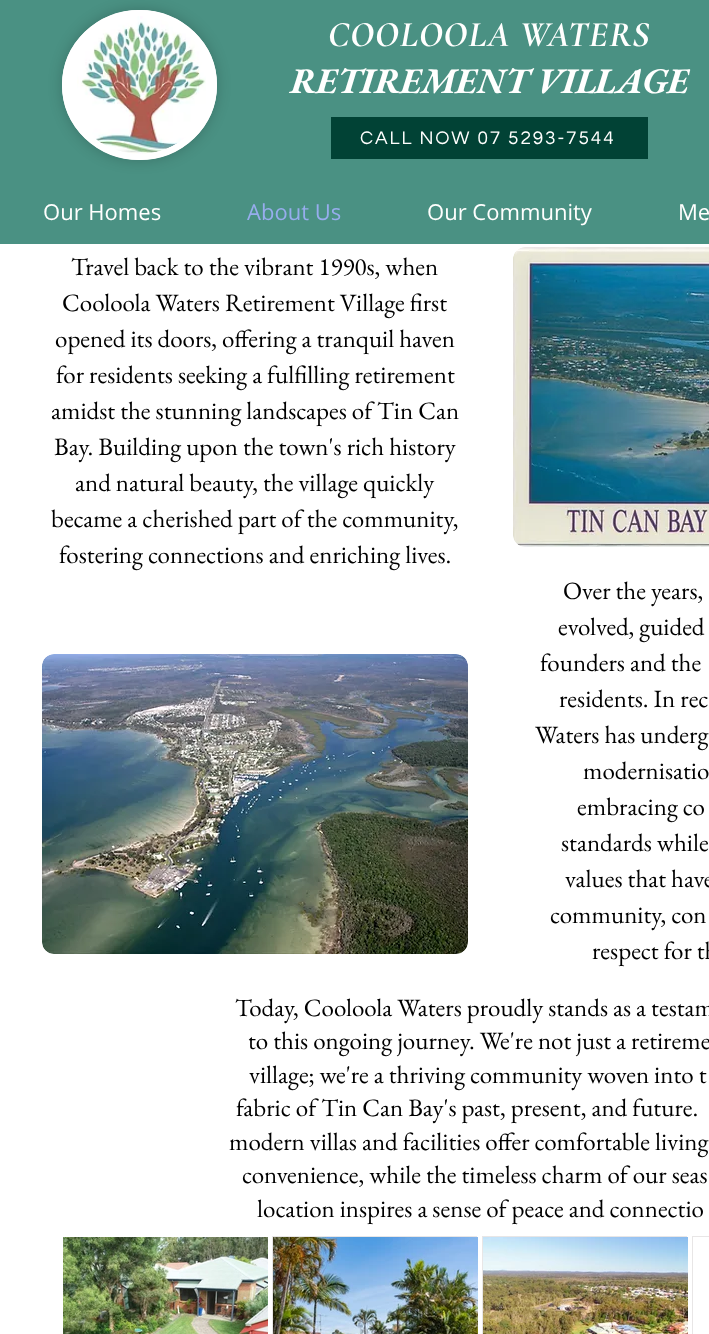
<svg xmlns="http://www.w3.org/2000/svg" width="709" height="1334">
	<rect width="100%" height="100%" fill="#FFFFFF" />
	<rect x="0" y="0" width="709" height="244" fill="#4A9183" />
	<rect x="62" y="10" width="155" height="150" rx="75" fill="#000000" fill-opacity="0.2" filter="blur(7px)" />
	<ellipse cx="139.5" cy="85" rx="77.5" ry="75" fill="#FFFFFF" />
	<path d="M139.5 13C180.5 13 214 45 214 85C214 125 180.5 157 139.5 157C98.5 157 65 125 65 85C65 45 98.5 13 139.5 13Z" fill="none" stroke="#FFFFFF" stroke-width="6" />
	<image x="77" y="16" width="129" height="138" href="assets/img1.png" />
	<text x="328" y="46" font-family="Cormorant Garamond" font-size="36" font-weight="700" font-style="italic" letter-spacing="1.1" fill="#FFFFFE">COOLOOLA WATERS</text>
	<text x="290" y="93" font-family="EB Garamond" font-size="36" font-weight="700" font-style="italic" fill="#FFFFFE">RETIREMENT VILLAGE</text>
	<rect x="331" y="117" width="317" height="42" fill="#014235" />
	<text x="360" y="144" font-family="Questrial" font-size="19" letter-spacing="1.9" fill="#FFFFFE">CALL NOW 07 5293-7544</text>
	<text x="43" y="220" font-family="Open Sans" font-size="22" fill="#FFFFFE">Our Homes</text>
	<text x="247" y="220" font-family="Open Sans" font-size="22" fill="#97ADED">About Us</text>
	<g font-family="Open Sans" font-size="22" fill="#FFFFFE">
		<text x="427" y="220">Our Community</text>
		<text x="678" y="220">Me</text>
	</g>
	<g font-family="EB Garamond" font-size="25" fill="#000000">
		<text x="71" y="275">Travel back to the vibrant 1990s, when</text>
		<text x="62" y="311">Cooloola Waters Retirement Village first</text>
		<text x="55" y="347">opened its doors, offering a tranquil haven</text>
		<text x="56" y="383">for residents seeking a fulfilling retirement</text>
		<text x="51" y="419">amidst the stunning landscapes of Tin Can</text>
		<text x="54" y="455">Bay. Building upon the town's rich history</text>
		<text x="75" y="491">and natural beauty, the village quickly</text>
		<text x="51" y="527">became a cherished part of the community,</text>
		<text x="59" y="563">fostering connections and enriching lives.</text>
	</g>
	<image x="513" y="247" width="196" height="300" href="assets/img2.png" />
	<image x="42" y="654" width="426" height="300" href="assets/img3.png" />
	<g font-family="EB Garamond" font-size="25" fill="#000000">
		<text x="563" y="599">Over the years,</text>
		<text x="558" y="635">evolved, guided</text>
		<text x="540" y="671">founders and the</text>
		<text x="559" y="707">residents. In rec</text>
		<text x="535" y="743">Waters has underg</text>
		<text x="583" y="779">modernisatio</text>
		<text x="577" y="815">embracing co</text>
		<text x="561" y="851">standards while</text>
		<text x="565" y="887">values that have</text>
		<text x="550" y="923">community, con</text>
		<text x="592" y="959">respect for th</text>
		<text x="235" y="1016">Today, Cooloola Waters proudly stands as a testam</text>
		<text x="248" y="1049">to this ongoing journey. We're not just a retireme</text>
		<text x="249" y="1083">village; we're a thriving community woven into t</text>
		<text x="236" y="1116">fabric of Tin Can Bay's past, present, and future.</text>
		<text x="229" y="1150">modern villas and facilities offer comfortable living</text>
		<text x="242" y="1183">convenience, while the timeless charm of our seas</text>
		<text x="257" y="1217">location inspires a sense of peace and connectio</text>
	</g>
	<image x="63" y="1237" width="205" height="97" href="assets/img4.png" />
	<rect x="272" y="1236" width="205" height="98" fill="#E8E6E6" />
	<image x="273" y="1237" width="205" height="97" href="assets/img5.png" />
	<rect x="482" y="1236" width="205" height="98" fill="#E8E6E6" />
	<image x="483" y="1237" width="205" height="97" href="assets/img6.png" />
	<rect x="692" y="1236" width="17" height="98" fill="#E8E6E6" />
	<rect x="693" y="1237" width="16" height="97" fill="#FFFFFF" />
</svg>
